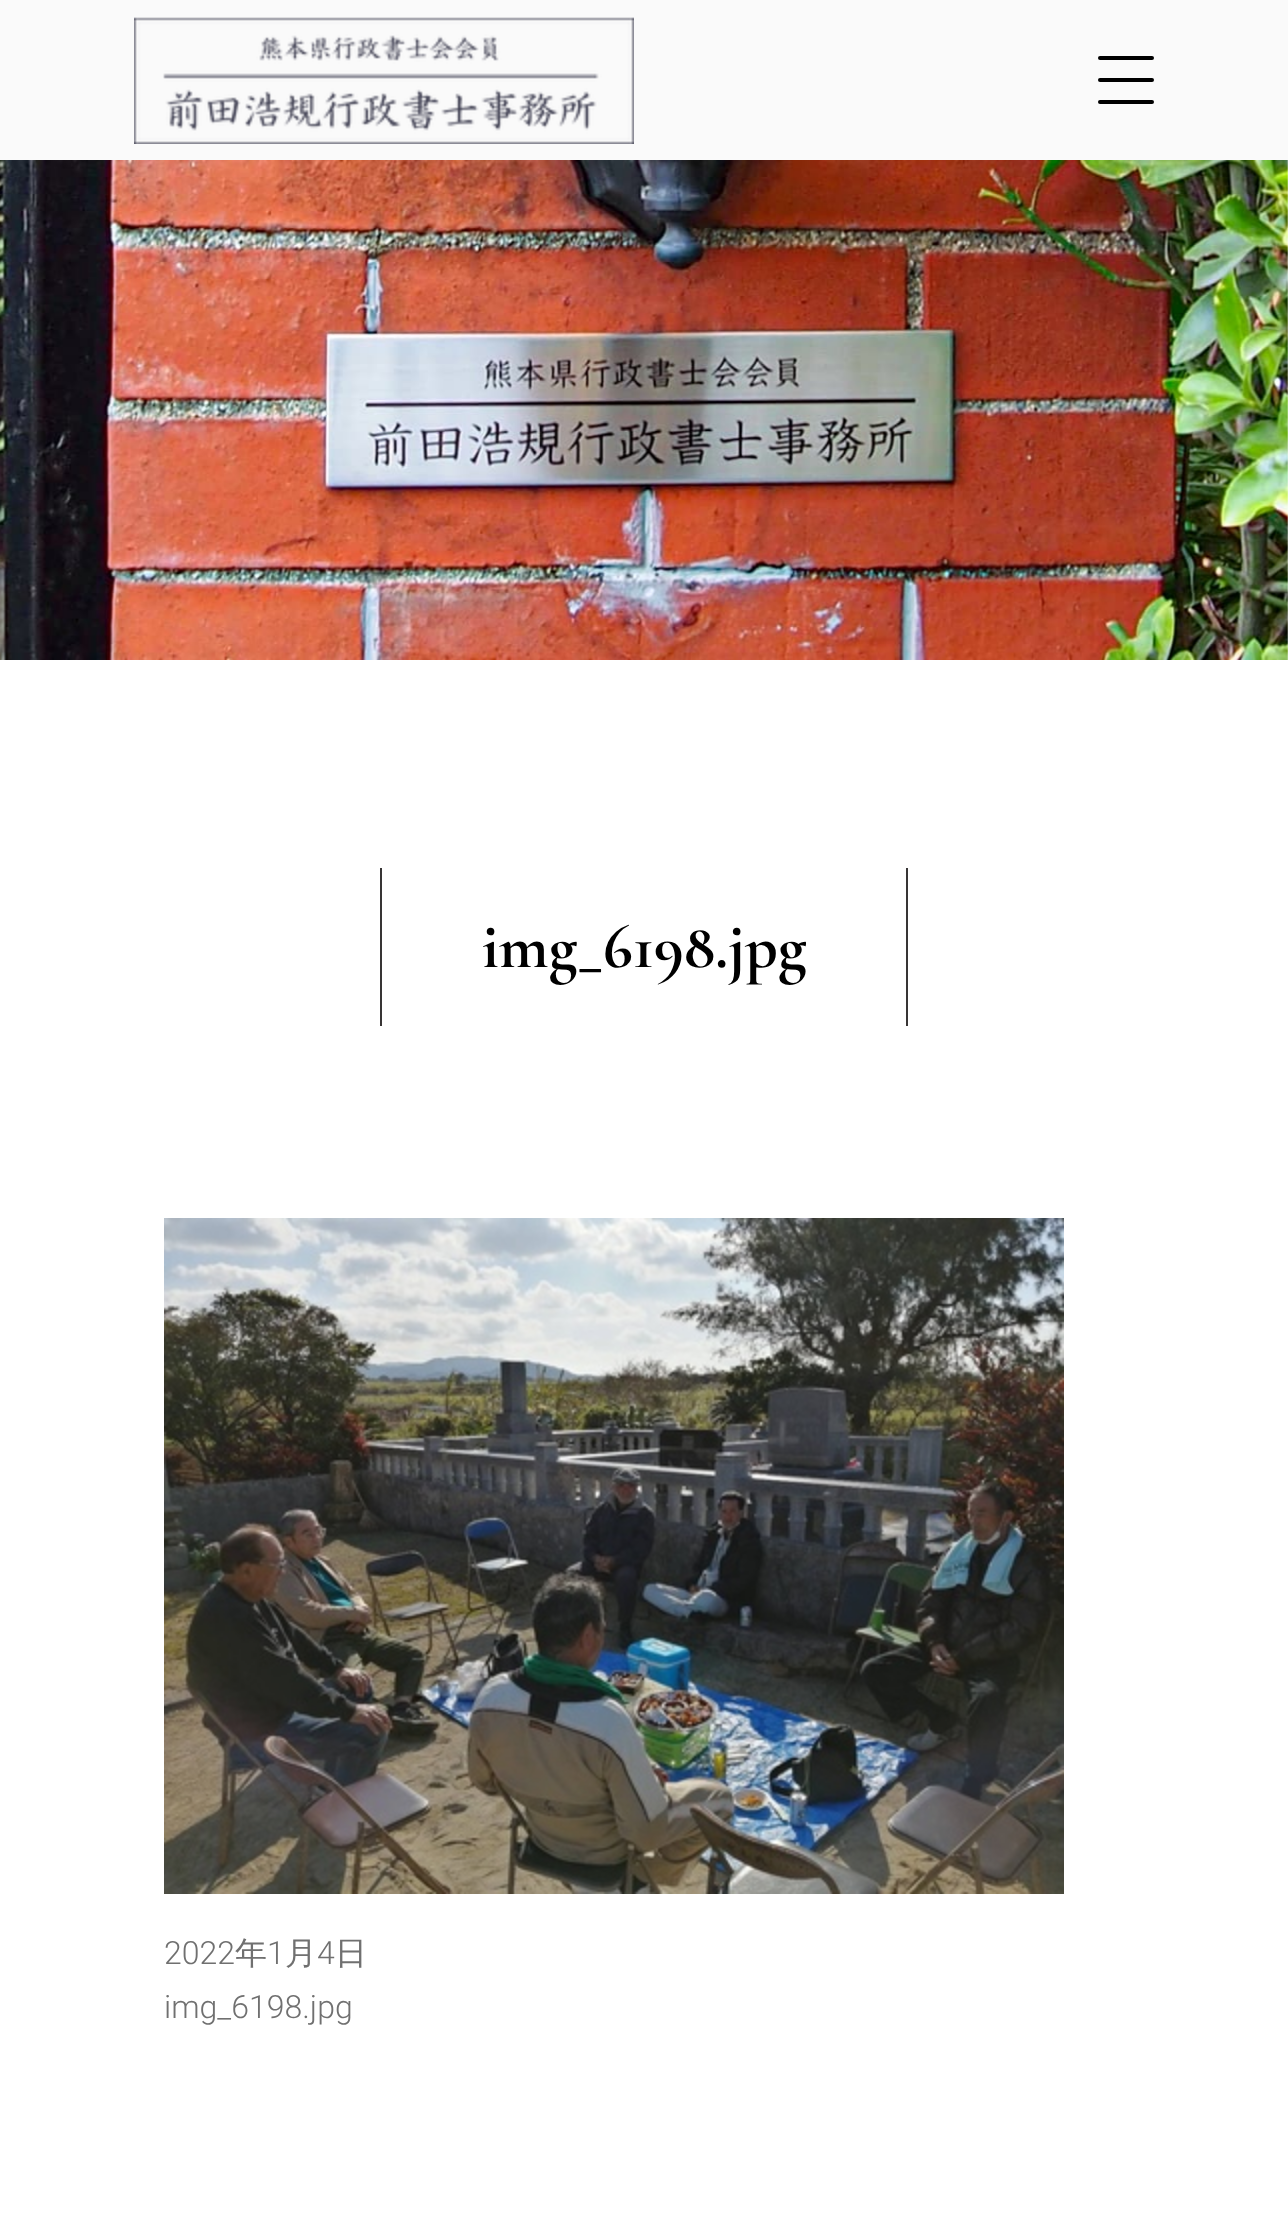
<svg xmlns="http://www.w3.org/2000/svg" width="1288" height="2221">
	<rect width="100%" height="100%" fill="#FFFFFF" />
	<rect x="0" y="0" width="1288" height="160" fill="#FAFAFA" />
	<image x="134" y="17" width="500" height="127" href="assets/img1.png" />
	<rect x="1098" y="56" width="56" height="4" rx="2" fill="#000000" />
	<rect x="1098" y="78" width="56" height="4" rx="2" fill="#000000" />
	<rect x="1098" y="100" width="56" height="4" rx="2" fill="#000000" />
	<image x="0" y="160" width="1288" height="500" href="assets/img2.png" />
	<rect x="906" y="868" width="2" height="158" fill="#383535" />
	<rect x="380" y="868" width="2" height="158" fill="#383535" />
	<text x="482" y="967" font-family="Cormorant Garamond" font-size="64" font-weight="700" fill="#000000">img_6198.jpg</text>
	<image x="164" y="1218" width="900" height="676" href="assets/img3.png" />
	<text x="164" y="1964" font-family="Roboto" font-size="32" font-weight="300" fill="#707070">2022</text>
	<text x="235" y="1964" font-family="WenQuanYi Zen Hei" font-size="32" font-weight="500" fill="#707070">年</text>
	<text x="267" y="1964" font-family="Roboto" font-size="32" font-weight="300" fill="#707070">1</text>
	<text x="285" y="1964" font-family="WenQuanYi Zen Hei" font-size="32" font-weight="500" fill="#707070">月</text>
	<text x="317" y="1964" font-family="Roboto" font-size="32" font-weight="300" fill="#707070">4</text>
	<text x="335" y="1964" font-family="WenQuanYi Zen Hei" font-size="32" font-weight="500" fill="#707070">日</text>
	<text x="164" y="2018" font-family="Roboto" font-size="32" font-weight="300" fill="#707070">img_6198.jpg</text>
</svg>
